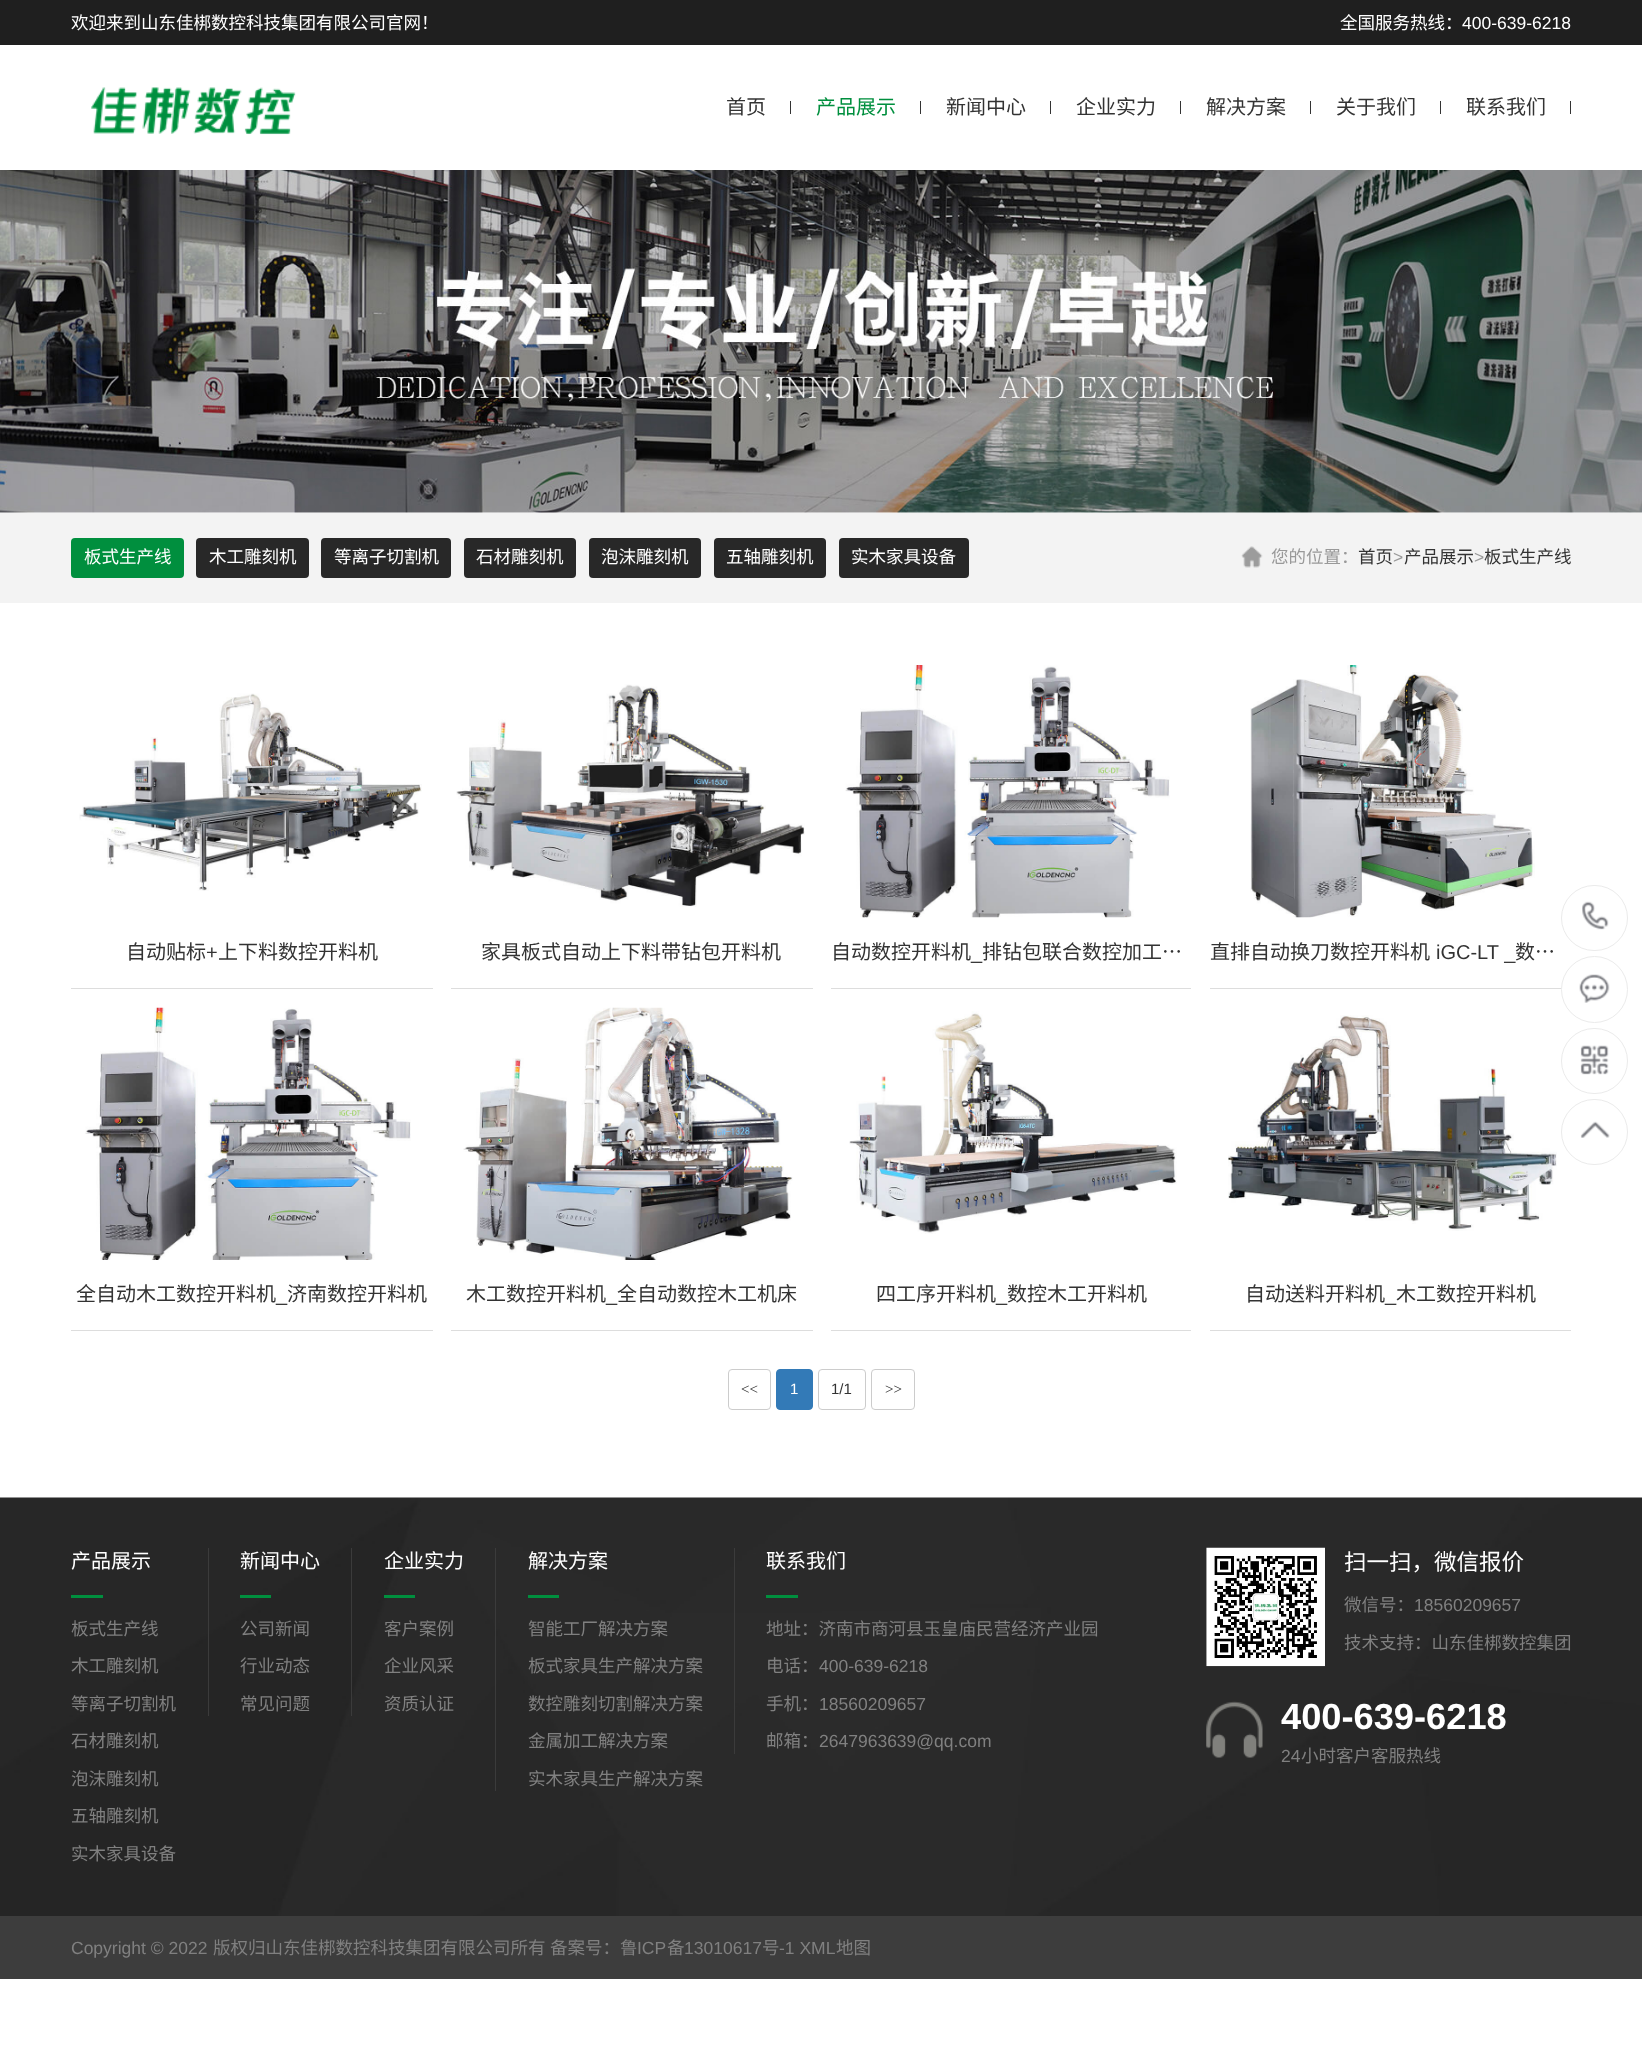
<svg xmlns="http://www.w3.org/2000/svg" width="1642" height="2046">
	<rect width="100%" height="100%" fill="#FFFFFF" />
	<rect x="0" y="0" width="1642" height="45" fill="#1F1F1F" />
	<g font-family="Noto Sans CJK SC" font-size="17.5" fill="#FFFFFF">
		<text x="71" y="29">欢迎来到山东佳梆数控科技集团有限公司官网！</text>
		<text x="1340" y="29">全国服务热线：</text>
	</g>
	<text x="1462" y="29" font-family="Liberation Sans" font-size="17.5" fill="#FFFFFF">400-639-6218</text>
	<image x="91" y="87" width="205" height="48" href="assets/img1.png" />
	<text x="726" y="114" font-family="Noto Sans CJK SC" font-size="20" fill="#333333">首页</text>
	<rect x="790" y="101" width="1" height="13" fill="#333333" />
	<text x="816" y="114" font-family="Noto Sans CJK SC" font-size="20" fill="#008F3E">产品展示</text>
	<rect x="920" y="101" width="1" height="13" fill="#333333" />
	<text x="946" y="114" font-family="Noto Sans CJK SC" font-size="20" fill="#333333">新闻中心</text>
	<rect x="1050" y="101" width="1" height="13" fill="#333333" />
	<text x="1076" y="114" font-family="Noto Sans CJK SC" font-size="20" fill="#333333">企业实力</text>
	<rect x="1180" y="101" width="1" height="13" fill="#333333" />
	<text x="1206" y="114" font-family="Noto Sans CJK SC" font-size="20" fill="#333333">解决方案</text>
	<rect x="1310" y="101" width="1" height="13" fill="#333333" />
	<text x="1336" y="114" font-family="Noto Sans CJK SC" font-size="20" fill="#333333">关于我们</text>
	<rect x="1440" y="101" width="1" height="13" fill="#333333" />
	<text x="1466" y="114" font-family="Noto Sans CJK SC" font-size="20" fill="#333333">联系我们</text>
	<rect x="1570" y="101" width="1" height="13" fill="#333333" />
	<image x="0" y="170" width="1642" height="343" href="assets/img2.png" />
	<rect x="0" y="513" width="1642" height="90" fill="#F3F3F3" />
	<rect x="71" y="538" width="113" height="40" rx="4" fill="#008F3E" />
	<text x="84" y="563" font-family="Noto Sans CJK SC" font-size="17.5" fill="#FFFFFF">板式生产线</text>
	<rect x="196" y="538" width="113" height="40" rx="4" fill="#282828" />
	<text x="209" y="563" font-family="Noto Sans CJK SC" font-size="17.5" fill="#FFFFFF">木工雕刻机</text>
	<rect x="321" y="538" width="130" height="40" rx="4" fill="#282828" />
	<text x="334" y="563" font-family="Noto Sans CJK SC" font-size="17.5" fill="#FFFFFF">等离子切割机</text>
	<rect x="464" y="538" width="112" height="40" rx="4" fill="#282828" />
	<text x="476" y="563" font-family="Noto Sans CJK SC" font-size="17.5" fill="#FFFFFF">石材雕刻机</text>
	<rect x="589" y="538" width="112" height="40" rx="4" fill="#282828" />
	<text x="601" y="563" font-family="Noto Sans CJK SC" font-size="17.5" fill="#FFFFFF">泡沫雕刻机</text>
	<rect x="714" y="538" width="112" height="40" rx="4" fill="#282828" />
	<text x="726" y="563" font-family="Noto Sans CJK SC" font-size="17.5" fill="#FFFFFF">五轴雕刻机</text>
	<rect x="839" y="538" width="130" height="40" rx="4" fill="#282828" />
	<text x="851" y="563" font-family="Noto Sans CJK SC" font-size="17.5" fill="#FFFFFF">实木家具设备</text>
	<image x="1241" y="546" width="22" height="22" href="assets/img3.png" />
	<text x="1271" y="563" font-family="Noto Sans CJK SC" font-size="17.5" fill="#999999">您的位置：</text>
	<text x="1358" y="563" font-family="Noto Sans CJK SC" font-size="17.5" fill="#333333">首页</text>
	<text x="1393" y="563" font-family="Liberation Sans" font-size="17.5" fill="#999999">&gt;</text>
	<text x="1404" y="563" font-family="Noto Sans CJK SC" font-size="17.5" fill="#333333">产品展示</text>
	<text x="1474" y="563" font-family="Liberation Sans" font-size="17.5" fill="#999999">&gt;</text>
	<text x="1484" y="563" font-family="Noto Sans CJK SC" font-size="17.5" fill="#333333">板式生产线</text>
	<image x="79" y="693" width="343" height="198" href="assets/img4.png" />
	<rect x="71" y="988" width="362" height="1" fill="#DDDDDD" />
	<text x="126" y="959" font-family="Noto Sans CJK SC" font-size="20" fill="#333333">自动贴标</text>
	<text x="206" y="959" font-family="Liberation Sans" font-size="20" fill="#333333">+</text>
	<text x="218" y="959" font-family="Noto Sans CJK SC" font-size="20" fill="#333333">上下料数控开料机</text>
	<image x="456" y="684" width="349" height="223" href="assets/img5.png" />
	<rect x="451" y="988" width="362" height="1" fill="#DDDDDD" />
	<text x="481" y="959" font-family="Noto Sans CJK SC" font-size="20" fill="#333333">家具板式自动上下料带钻包开料机</text>
	<image x="845" y="665" width="325" height="253" href="assets/img6.png" />
	<rect x="831" y="988" width="360" height="1" fill="#DDDDDD" />
	<g font-family="Noto Sans CJK SC" font-size="20" fill="#333333">
		<text x="831" y="959">自动数控开料机</text>
		<text x="982" y="959">排钻包联合数控加工…</text>
	</g>
	<text x="971" y="959" font-family="Liberation Sans" font-size="20" fill="#333333">_</text>
	<image x="1250" y="665" width="285" height="253" href="assets/img7.png" />
	<rect x="1210" y="988" width="352" height="1" fill="#DDDDDD" />
	<text x="1210" y="959" font-family="Noto Sans CJK SC" font-size="20" fill="#333333">直排自动换刀数控开料机</text>
	<text x="1436" y="959" font-family="Liberation Sans" font-size="20" fill="#333333">iGC-LT _</text>
	<text x="1515" y="959" font-family="Noto Sans CJK SC" font-size="20" fill="#333333">数…</text>
	<image x="85" y="1007" width="326" height="253" href="assets/img8.png" />
	<rect x="71" y="1330" width="362" height="1" fill="#DDDDDD" />
	<g font-family="Noto Sans CJK SC" font-size="20" fill="#333333">
		<text x="76" y="1301">全自动木工数控开料机</text>
		<text x="287" y="1301">济南数控开料机</text>
	</g>
	<text x="276" y="1301" font-family="Liberation Sans" font-size="20" fill="#333333">_</text>
	<image x="463" y="1007" width="330" height="253" href="assets/img9.png" />
	<rect x="451" y="1330" width="362" height="1" fill="#DDDDDD" />
	<g font-family="Noto Sans CJK SC" font-size="20" fill="#333333">
		<text x="466" y="1301">木工数控开料机</text>
		<text x="617" y="1301">全自动数控木工机床</text>
	</g>
	<text x="606" y="1301" font-family="Liberation Sans" font-size="20" fill="#333333">_</text>
	<image x="849" y="1011" width="328" height="223" href="assets/img10.png" />
	<rect x="831" y="1330" width="360" height="1" fill="#DDDDDD" />
	<g font-family="Noto Sans CJK SC" font-size="20" fill="#333333">
		<text x="876" y="1301">四工序开料机</text>
		<text x="1007" y="1301">数控木工开料机</text>
	</g>
	<text x="996" y="1301" font-family="Liberation Sans" font-size="20" fill="#333333">_</text>
	<image x="1228" y="1015" width="329" height="216" href="assets/img11.png" />
	<rect x="1210" y="1330" width="361" height="1" fill="#DDDDDD" />
	<g font-family="Noto Sans CJK SC" font-size="20" fill="#333333">
		<text x="1245" y="1301">自动送料开料机</text>
		<text x="1396" y="1301">木工数控开料机</text>
	</g>
	<text x="1385" y="1301" font-family="Liberation Sans" font-size="20" fill="#333333">_</text>
	<rect x="728.5" y="1369.5" width="42" height="40" rx="3.5" fill="none" stroke="#CCCCCC" />
	<text x="741" y="1394" font-family="Liberation Serif" font-size="15" fill="#333333">&lt;&lt;</text>
	<rect x="776.5" y="1369.5" width="36" height="40" rx="3.5" fill="#337AB7" stroke="#337AB7" />
	<text x="790" y="1394" font-family="Liberation Sans" font-size="15" fill="#FFFFFF">1</text>
	<rect x="818.5" y="1369.5" width="47" height="40" rx="3.5" fill="none" stroke="#CCCCCC" />
	<text x="831" y="1394" font-family="Liberation Sans" font-size="15" fill="#333333">1/1</text>
	<rect x="871.5" y="1369.5" width="43" height="40" rx="3.5" fill="none" stroke="#CCCCCC" />
	<text x="885" y="1394" font-family="Liberation Serif" font-size="15" fill="#333333">&gt;&gt;</text>
	<rect x="1561.5" y="885.5" width="66" height="65" rx="32.5" fill="none" stroke="#EBEBEB" />
	<image x="1582" y="901" width="27" height="29" href="assets/img12.png" />
	<circle cx="1594.5" cy="989.5" r="33" fill="#FFFFFF" stroke="#EBEBEB" />
	<image x="1579" y="974" width="31" height="29" href="assets/img13.png" />
	<rect x="1561.5" y="1028.5" width="66" height="65" rx="32.5" fill="none" stroke="#EBEBEB" />
	<image x="1580" y="1045" width="29" height="30" href="assets/img14.png" />
	<rect x="1561.5" y="1099.5" width="66" height="65" rx="32.5" fill="none" stroke="#EBEBEB" />
	<image x="1580" y="1121" width="30" height="17" href="assets/img15.png" />
	<image x="0" y="1497" width="1642" height="419" href="assets/img16.png" />
	<text x="71" y="1568" font-family="Noto Sans CJK SC" font-size="20" fill="#FFFFFF">产品展示</text>
	<rect x="71" y="1595" width="32" height="3" fill="#008F3E" />
	<g font-family="Noto Sans CJK SC" font-size="17.5" fill="#808080">
		<text x="71" y="1635">板式生产线</text>
		<text x="71" y="1672">木工雕刻机</text>
		<text x="71" y="1710">等离子切割机</text>
		<text x="71" y="1747">石材雕刻机</text>
		<text x="71" y="1785">泡沫雕刻机</text>
		<text x="71" y="1822">五轴雕刻机</text>
		<text x="71" y="1860">实木家具设备</text>
	</g>
	<rect x="208" y="1548" width="1" height="168" fill="#3B3B3B" />
	<text x="240" y="1568" font-family="Noto Sans CJK SC" font-size="20" fill="#FFFFFF">新闻中心</text>
	<rect x="240" y="1595" width="31" height="3" fill="#008F3E" />
	<g font-family="Noto Sans CJK SC" font-size="17.5" fill="#808080">
		<text x="240" y="1635">公司新闻</text>
		<text x="240" y="1672">行业动态</text>
		<text x="240" y="1710">常见问题</text>
	</g>
	<rect x="351" y="1548" width="1" height="168" fill="#3B3B3B" />
	<text x="384" y="1568" font-family="Noto Sans CJK SC" font-size="20" fill="#FFFFFF">企业实力</text>
	<rect x="384" y="1595" width="31" height="3" fill="#008F3E" />
	<g font-family="Noto Sans CJK SC" font-size="17.5" fill="#808080">
		<text x="384" y="1635">客户案例</text>
		<text x="384" y="1672">企业风采</text>
		<text x="384" y="1710">资质认证</text>
	</g>
	<rect x="495" y="1548" width="1" height="243" fill="#3B3B3B" />
	<text x="528" y="1568" font-family="Noto Sans CJK SC" font-size="20" fill="#FFFFFF">解决方案</text>
	<rect x="528" y="1595" width="31" height="3" fill="#008F3E" />
	<g font-family="Noto Sans CJK SC" font-size="17.5" fill="#808080">
		<text x="528" y="1635">智能工厂解决方案</text>
		<text x="528" y="1672">板式家具生产解决方案</text>
		<text x="528" y="1710">数控雕刻切割解决方案</text>
		<text x="528" y="1747">金属加工解决方案</text>
		<text x="528" y="1785">实木家具生产解决方案</text>
	</g>
	<rect x="734" y="1548" width="1" height="206" fill="#3B3B3B" />
	<text x="766" y="1568" font-family="Noto Sans CJK SC" font-size="20" fill="#FFFFFF">联系我们</text>
	<rect x="766" y="1595" width="32" height="3" fill="#008F3E" />
	<g font-family="Noto Sans CJK SC" font-size="17.5" fill="#808080">
		<text x="766" y="1635">地址：济南市商河县玉皇庙民营经济产业园</text>
		<text x="766" y="1672">电话：</text>
	</g>
	<text x="819" y="1672" font-family="Liberation Sans" font-size="17.5" fill="#808080">400-639-6218</text>
	<text x="766" y="1710" font-family="Noto Sans CJK SC" font-size="17.5" fill="#808080">手机：</text>
	<text x="819" y="1710" font-family="Liberation Sans" font-size="17.5" fill="#808080">18560209657</text>
	<text x="766" y="1747" font-family="Noto Sans CJK SC" font-size="17.5" fill="#808080">邮箱：</text>
	<text x="819" y="1747" font-family="Liberation Sans" font-size="17.5" fill="#808080">2647963639@qq.com</text>
	<image x="1206" y="1547" width="119" height="120" href="assets/img17.png" />
	<text x="1344" y="1570" font-family="Noto Sans CJK SC" font-size="22.5" fill="#FFFFFF">扫一扫，微信报价</text>
	<text x="1344" y="1611" font-family="Noto Sans CJK SC" font-size="17.5" fill="#808080">微信号：</text>
	<text x="1414" y="1611" font-family="Liberation Sans" font-size="17.5" fill="#808080">18560209657</text>
	<text x="1344" y="1649" font-family="Noto Sans CJK SC" font-size="17.5" fill="#808080">技术支持：山东佳梆数控集团</text>
	<image x="1206" y="1701" width="57" height="57" href="assets/img18.png" />
	<text x="1281" y="1729" font-family="Liberation Sans" font-size="36.25" font-weight="700" fill="#FFFFFF">400-639-6218</text>
	<text x="1281" y="1762" font-family="Liberation Sans" font-size="17.5" fill="#808080">24</text>
	<text x="1301" y="1762" font-family="Noto Sans CJK SC" font-size="17.5" fill="#808080">小时客户客服热线</text>
	<rect x="0" y="1916" width="1642" height="63" fill="#3D3D3D" />
	<text x="71" y="1954" font-family="Liberation Sans" font-size="17.5" fill="#808080">Copyright © 2022</text>
	<g font-family="Noto Sans CJK SC" font-size="17.5" fill="#808080">
		<text x="213" y="1954">版权归山东佳梆数控科技集团有限公司所有</text>
		<text x="550" y="1954">备案号：鲁</text>
	</g>
	<text x="637" y="1954" font-family="Liberation Sans" font-size="17.5" fill="#808080">ICP</text>
	<text x="667" y="1954" font-family="Noto Sans CJK SC" font-size="17.5" fill="#808080">备</text>
	<text x="684" y="1954" font-family="Liberation Sans" font-size="17.5" fill="#808080">13010617</text>
	<text x="762" y="1954" font-family="Noto Sans CJK SC" font-size="17.5" fill="#808080">号</text>
	<text x="779" y="1954" font-family="Liberation Sans" font-size="17.5" fill="#808080">-1 XML</text>
	<text x="836" y="1954" font-family="Noto Sans CJK SC" font-size="17.5" fill="#808080">地图</text>
</svg>
